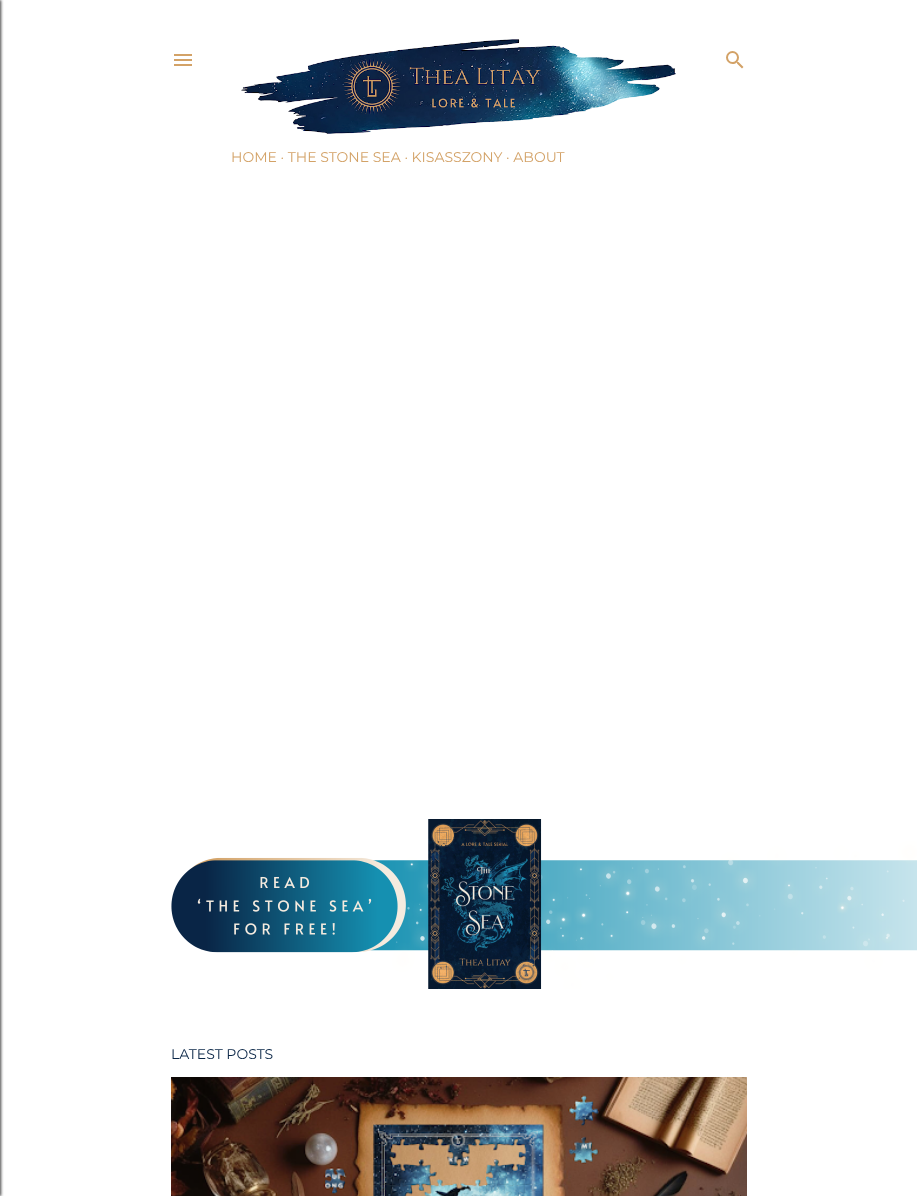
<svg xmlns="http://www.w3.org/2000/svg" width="917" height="1196">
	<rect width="100%" height="100%" fill="#FFFFFF" />
	<rect x="-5" y="0" width="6" height="1196" fill="#414141" filter="blur(1.5px)" />
	<image x="174" y="54" width="18" height="12" href="assets/img1.png" />
	<image x="726" y="51" width="18" height="18" href="assets/img2.png" />
	<image x="241" y="39" width="435" height="95" href="assets/img3.png" />
	<text x="231" y="162" font-family="Montserrat" font-size="14" font-weight="100" fill="#D3A267">HOME · THE STONE SEA · KISASSZONY · ABOUT</text>
	<image x="171" y="819" width="746" height="170" href="assets/img4.png" />
	<text x="171" y="1059" font-family="Montserrat" font-size="14" font-weight="100" fill="#092546">LATEST POSTS</text>
	<image x="171" y="1077" width="576" height="119" href="assets/img5.png" />
</svg>
